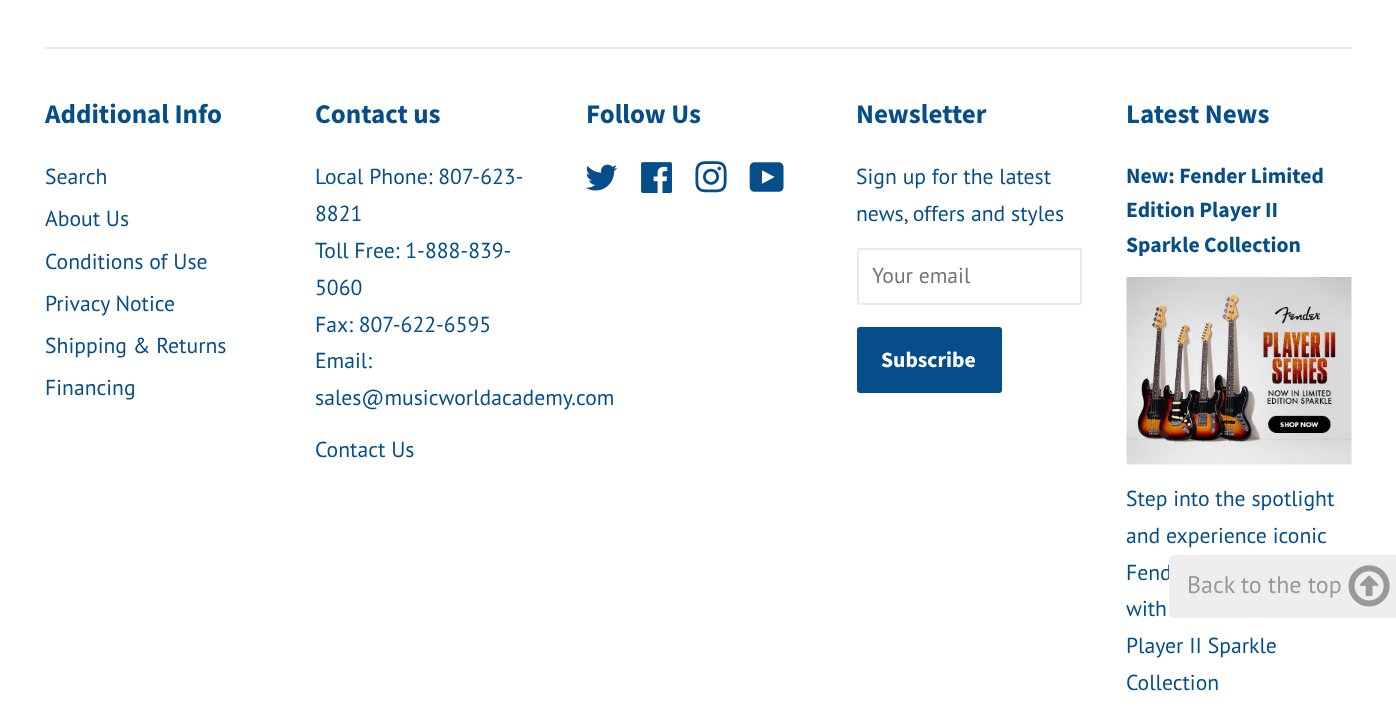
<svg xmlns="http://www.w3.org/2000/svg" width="1396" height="714">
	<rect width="100%" height="100%" fill="#FFFFFF" />
	<rect x="45" y="47" width="1307" height="2" fill="#EBEBEB" />
	<text x="45" y="123" font-family="Source Sans Pro" font-size="27" font-weight="700" fill="#064E89">Additional Info</text>
	<g font-family="PT Sans" font-size="21.7" fill="#064E89">
		<text x="45" y="184">Search</text>
		<text x="45" y="226">About Us</text>
		<text x="45" y="269">Conditions of Use</text>
		<text x="45" y="311">Privacy Notice</text>
		<text x="45" y="353">Shipping &amp; Returns</text>
		<text x="45" y="395">Financing</text>
	</g>
	<text x="315" y="123" font-family="Source Sans Pro" font-size="27" font-weight="700" fill="#064E89">Contact us</text>
	<g font-family="PT Sans" font-size="21.7" fill="#064E89">
		<text x="315" y="184">Local Phone: 807-623-</text>
		<text x="315" y="221">8821</text>
		<text x="315" y="258">Toll Free: 1-888-839-</text>
		<text x="315" y="295">5060</text>
		<text x="315" y="332">Fax: 807-622-6595</text>
		<text x="315" y="368">Email:</text>
		<text x="315" y="405">sales@musicworldacademy.com</text>
		<text x="315" y="457">Contact Us</text>
	</g>
	<text x="586" y="123" font-family="Source Sans Pro" font-size="27" font-weight="700" fill="#064E89">Follow Us</text>
	<image x="585" y="164" width="33" height="27" href="assets/img1.png" />
	<image x="641" y="162" width="31" height="32" href="assets/img2.png" />
	<image x="695" y="161" width="32" height="32" href="assets/img3.png" />
	<image x="749" y="162" width="35" height="30" href="assets/img4.png" />
	<text x="856" y="123" font-family="Source Sans Pro" font-size="27" font-weight="700" fill="#064E89">Newsletter</text>
	<g font-family="PT Sans" font-size="21.7" fill="#064E89">
		<text x="856" y="184">Sign up for the latest</text>
		<text x="856" y="221">news, offers and styles</text>
	</g>
	<rect x="858" y="249" width="223" height="55" rx="2" fill="none" stroke="#EAEAEA" stroke-width="2" />
	<text x="872" y="283" font-family="PT Sans" font-size="21.7" fill="#757575">Your email</text>
	<rect x="857" y="327" width="145" height="66" rx="3" fill="#064E89" />
	<text x="881" y="367" font-family="Source Sans Pro" font-size="21.7" font-weight="700" fill="#FFFFFF">Subscribe</text>
	<text x="1126" y="123" font-family="Source Sans Pro" font-size="27" font-weight="700" fill="#064E89">Latest News</text>
	<g font-family="Source Sans Pro" font-size="21.7" font-weight="700" fill="#064E89">
		<text x="1126" y="183">New: Fender Limited</text>
		<text x="1126" y="217">Edition Player II</text>
		<text x="1126" y="252">Sparkle Collection</text>
	</g>
	<image x="1126" y="277" width="226" height="188" href="assets/img5.png" />
	<g font-family="PT Sans" font-size="21.7" fill="#064E89">
		<text x="1126" y="506">Step into the spotlight</text>
		<text x="1126" y="543">and experience iconic</text>
		<text x="1126" y="580">Fend</text>
		<text x="1126" y="616">with</text>
		<text x="1126" y="653">Player II Sparkle</text>
		<text x="1126" y="690">Collection</text>
	</g>
	<path d="M1174 555H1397V618H1174C1171 618 1169 616 1169 613V560C1169 557 1171 555 1174 555Z" fill="#EEEEEE" />
	<text x="1187" y="593" font-family="PT Sans" font-size="24" fill="#999999">Back to the top</text>
	<image x="1348" y="565" width="42" height="42" href="assets/img6.png" />
</svg>
